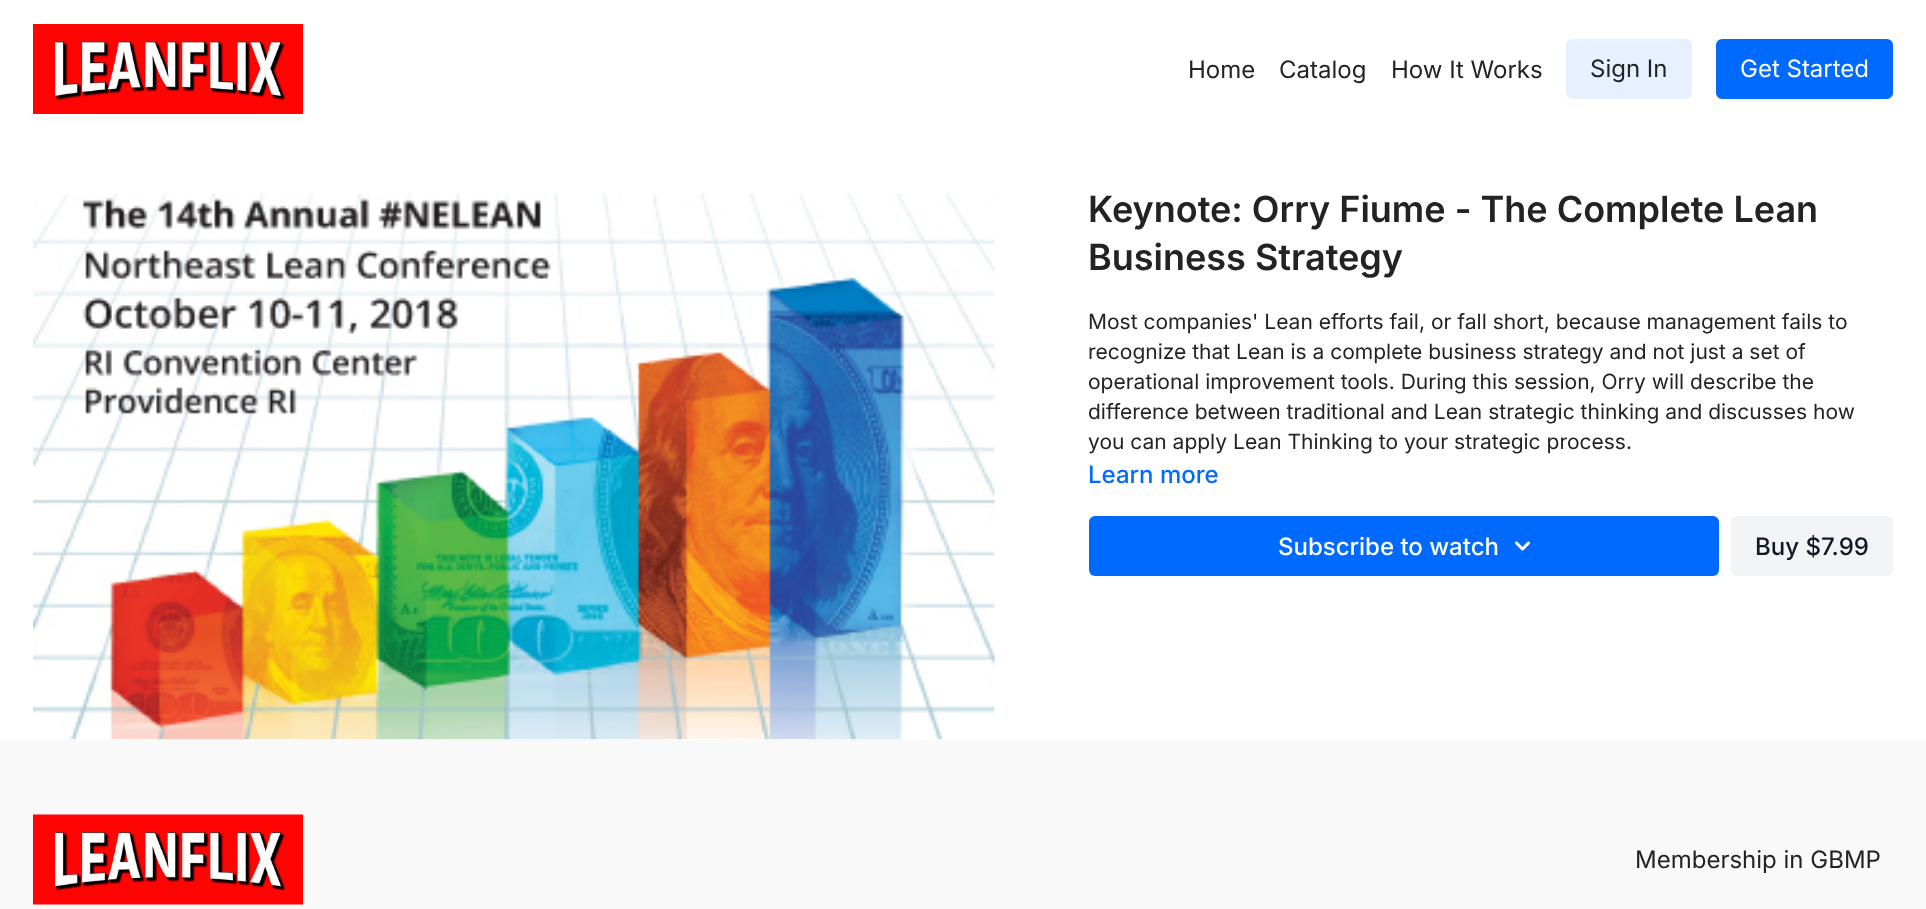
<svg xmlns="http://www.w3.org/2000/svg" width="1926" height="909">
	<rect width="100%" height="100%" fill="#FFFFFF" />
	<image x="33" y="24" width="270" height="90" href="assets/img1.png" />
	<g font-family="Inter" font-size="24" fill="#232323">
		<text x="1188" y="78">Home</text>
		<text x="1279" y="78">Catalog</text>
		<text x="1391" y="78">How It Works</text>
	</g>
	<rect x="1567" y="40" width="124" height="58" rx="5" fill="#E6F0FF" stroke="#E6F0FF" stroke-width="2" />
	<text x="1590" y="77" font-family="Inter" font-size="24" fill="#232323">Sign In</text>
	<rect x="1717" y="40" width="175" height="58" rx="5" fill="#006AFF" stroke="#006AFF" stroke-width="2" />
	<text x="1740" y="77" font-family="Inter" font-size="24" fill="#FFFFFF">Get Started</text>
	<image x="33" y="193" width="963" height="547" href="assets/img2.png" />
	<g font-family="Inter" font-size="36" font-weight="600" fill="#232323">
		<text x="1088" y="222">Keynote: Orry Fiume - The Complete Lean</text>
		<text x="1088" y="270">Business Strategy</text>
	</g>
	<g font-family="Inter" font-size="21" fill="#232323">
		<text x="1088" y="329">Most companies' Lean efforts fail, or fall short, because management fails to</text>
		<text x="1088" y="359">recognize that Lean is a complete business strategy and not just a set of</text>
		<text x="1088" y="389">operational improvement tools. During this session, Orry will describe the</text>
		<text x="1088" y="419">difference between traditional and Lean strategic thinking and discusses how</text>
		<text x="1088" y="449">you can apply Lean Thinking to your strategic process.</text>
	</g>
	<text x="1088" y="483" font-family="Inter" font-size="24" font-weight="500" fill="#006AFF">Learn more</text>
	<rect x="1089" y="516" width="630" height="60" rx="6" fill="#006AFF" />
	<text x="1278" y="555" font-family="Inter" font-size="24" font-weight="500" fill="#FFFFFF">Subscribe to watch</text>
	<image x="1515" y="541" width="15" height="10" href="assets/img3.png" />
	<rect x="1731" y="516" width="162" height="60" rx="6" fill="#F3F4F6" />
	<text x="1755" y="555" font-family="Inter" font-size="24" font-weight="500" fill="#111827">Buy $7.99</text>
	<rect x="0" y="740" width="1926" height="169" fill="#F9F9F9" />
	<image x="33" y="814" width="270" height="91" href="assets/img4.png" />
	<text x="1635" y="868" font-family="Inter" font-size="24" fill="#232323">Membership in GBMP</text>
</svg>
